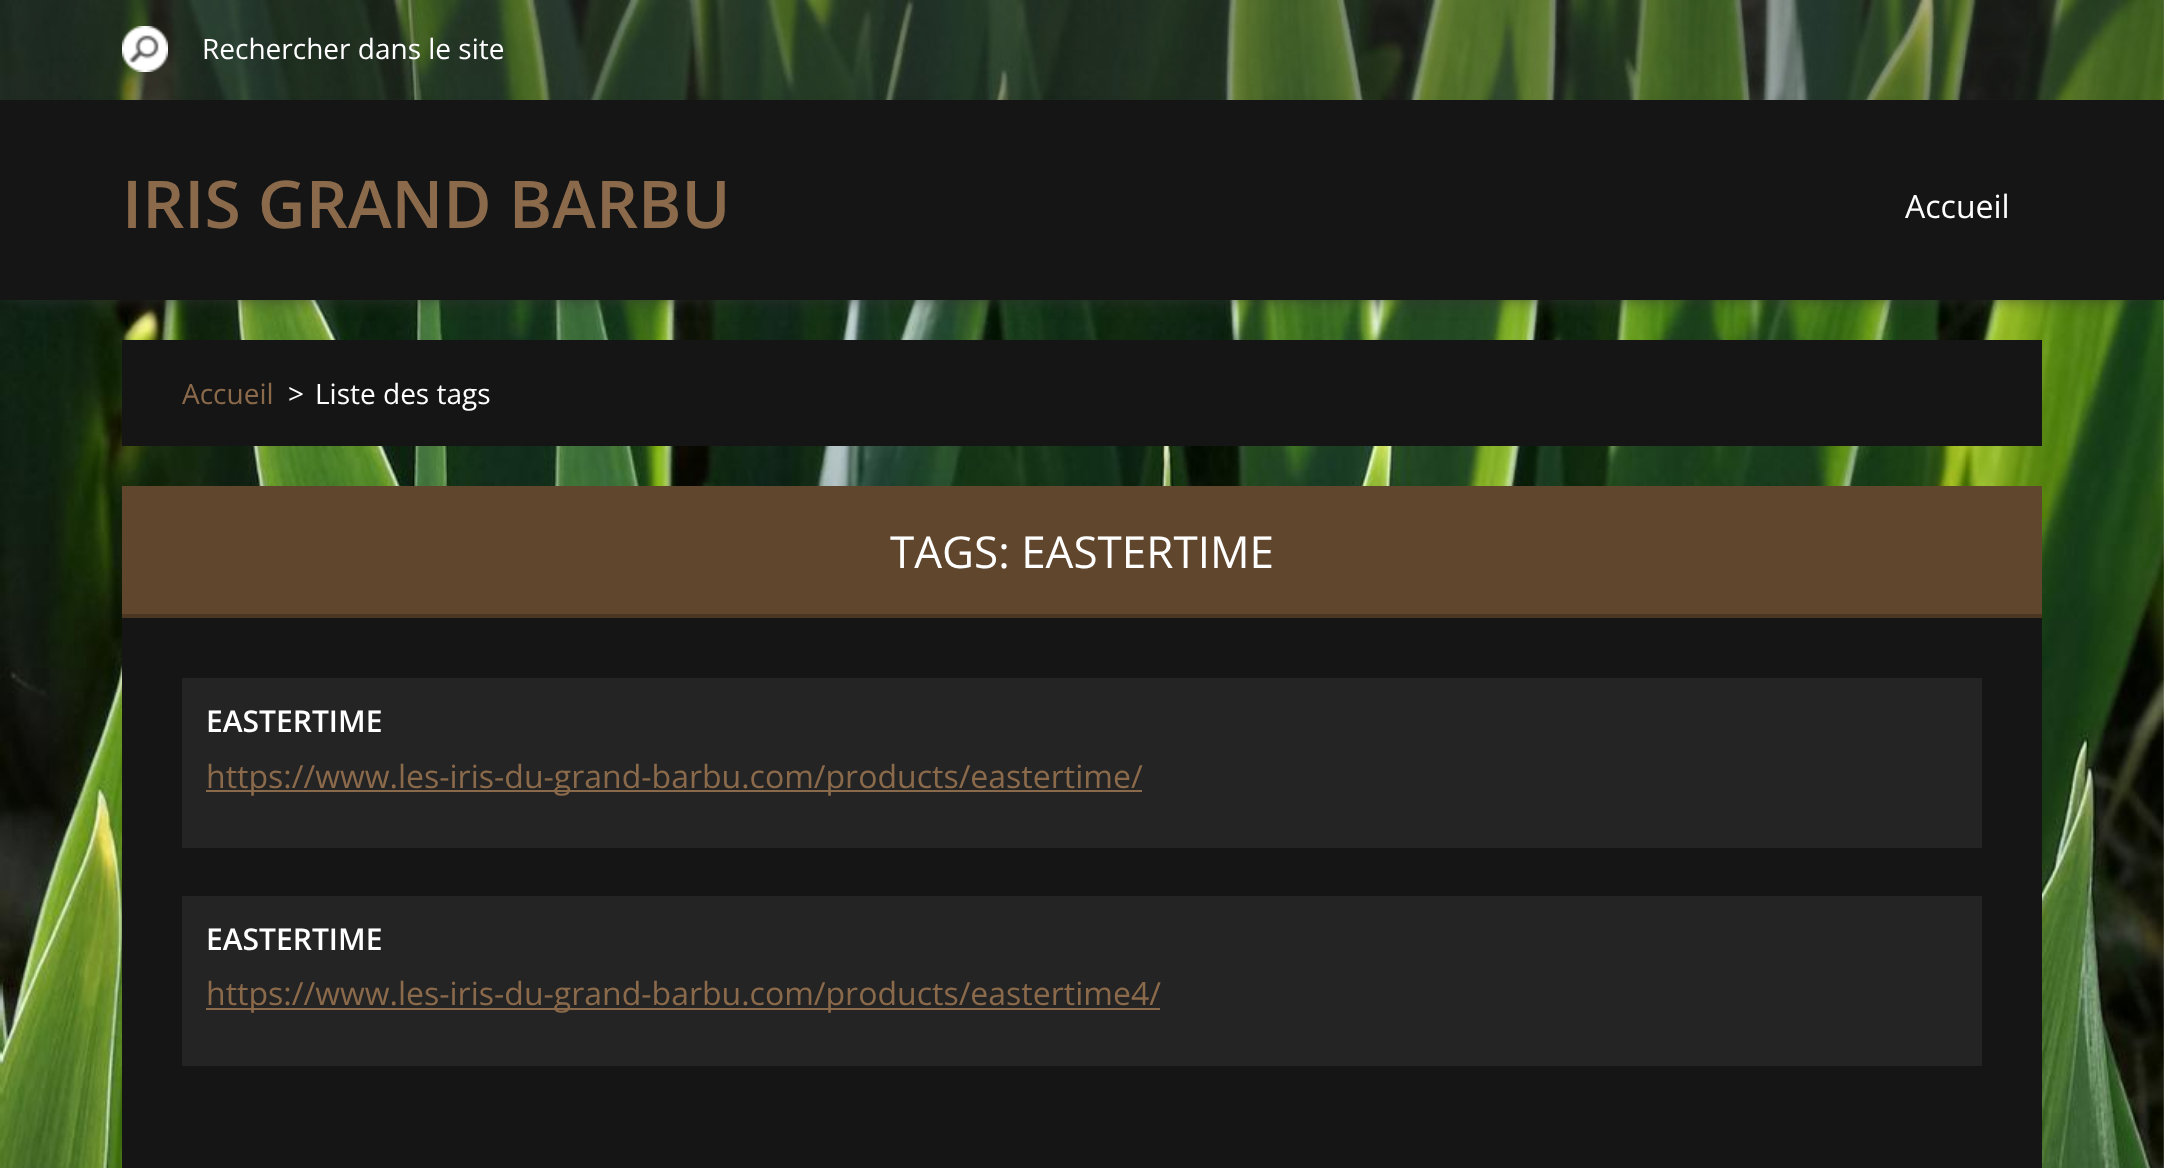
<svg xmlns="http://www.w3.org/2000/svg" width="2164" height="1168">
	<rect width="100%" height="100%" fill="#FFFFFF" />
	<image x="0" y="0" width="2164" height="1168" href="assets/img1.png" />
	<rect x="0" y="0" width="2164" height="100" fill="#353535" fill-opacity="0.4" />
	<image x="122" y="26" width="46" height="46" href="assets/img2.png" />
	<text x="202" y="59" font-family="Open Sans" font-size="28" fill="#FFFFFF">Rechercher dans le site</text>
	<rect x="12" y="120" width="2140" height="176" fill="#353535" filter="blur(10px)" />
	<rect x="0" y="100" width="2164" height="200" fill="#151515" />
	<text x="122" y="228" font-family="Open Sans" font-size="66" font-weight="600" fill="#8B6A4B">IRIS GRAND BARBU</text>
	<text x="1905" y="218" font-family="Open Sans" font-size="32" fill="#FFFFFF">Accueil</text>
	<rect x="122" y="340" width="1920" height="106" fill="#151515" />
	<text x="182" y="404" font-family="Open Sans" font-size="28" fill="#8B6A4B">Accueil</text>
	<g font-family="Open Sans" font-size="28" fill="#FFFFFF">
		<text x="288" y="404">&gt;</text>
		<text x="315" y="404">Liste des tags</text>
	</g>
	<rect x="122" y="618" width="1920" height="550" fill="#151515" />
	<rect x="122" y="486" width="1920" height="128" fill="#60462D" />
	<rect x="122" y="614" width="1920" height="4" fill="#4B3621" />
	<text x="890" y="568" font-family="Open Sans" font-size="44" fill="#FFFFFF">TAGS: EASTERTIME</text>
	<rect x="182" y="678" width="1800" height="170" fill="#242424" />
	<text x="206" y="732" font-family="Open Sans" font-size="30" font-weight="600" fill="#FFFFFF">EASTERTIME</text>
	<rect x="206" y="790" width="936" height="2" fill="#8B6A4B" />
	<text x="206" y="788" font-family="Open Sans" font-size="32" fill="#8B6A4B">https://www.les-iris-du-grand-barbu.com/products/eastertime/</text>
	<rect x="182" y="896" width="1800" height="170" fill="#242424" />
	<text x="206" y="950" font-family="Open Sans" font-size="30" font-weight="600" fill="#FFFFFF">EASTERTIME</text>
	<rect x="206" y="1008" width="954" height="2" fill="#8B6A4B" />
	<text x="206" y="1005" font-family="Open Sans" font-size="32" fill="#8B6A4B">https://www.les-iris-du-grand-barbu.com/products/eastertime4/</text>
</svg>
